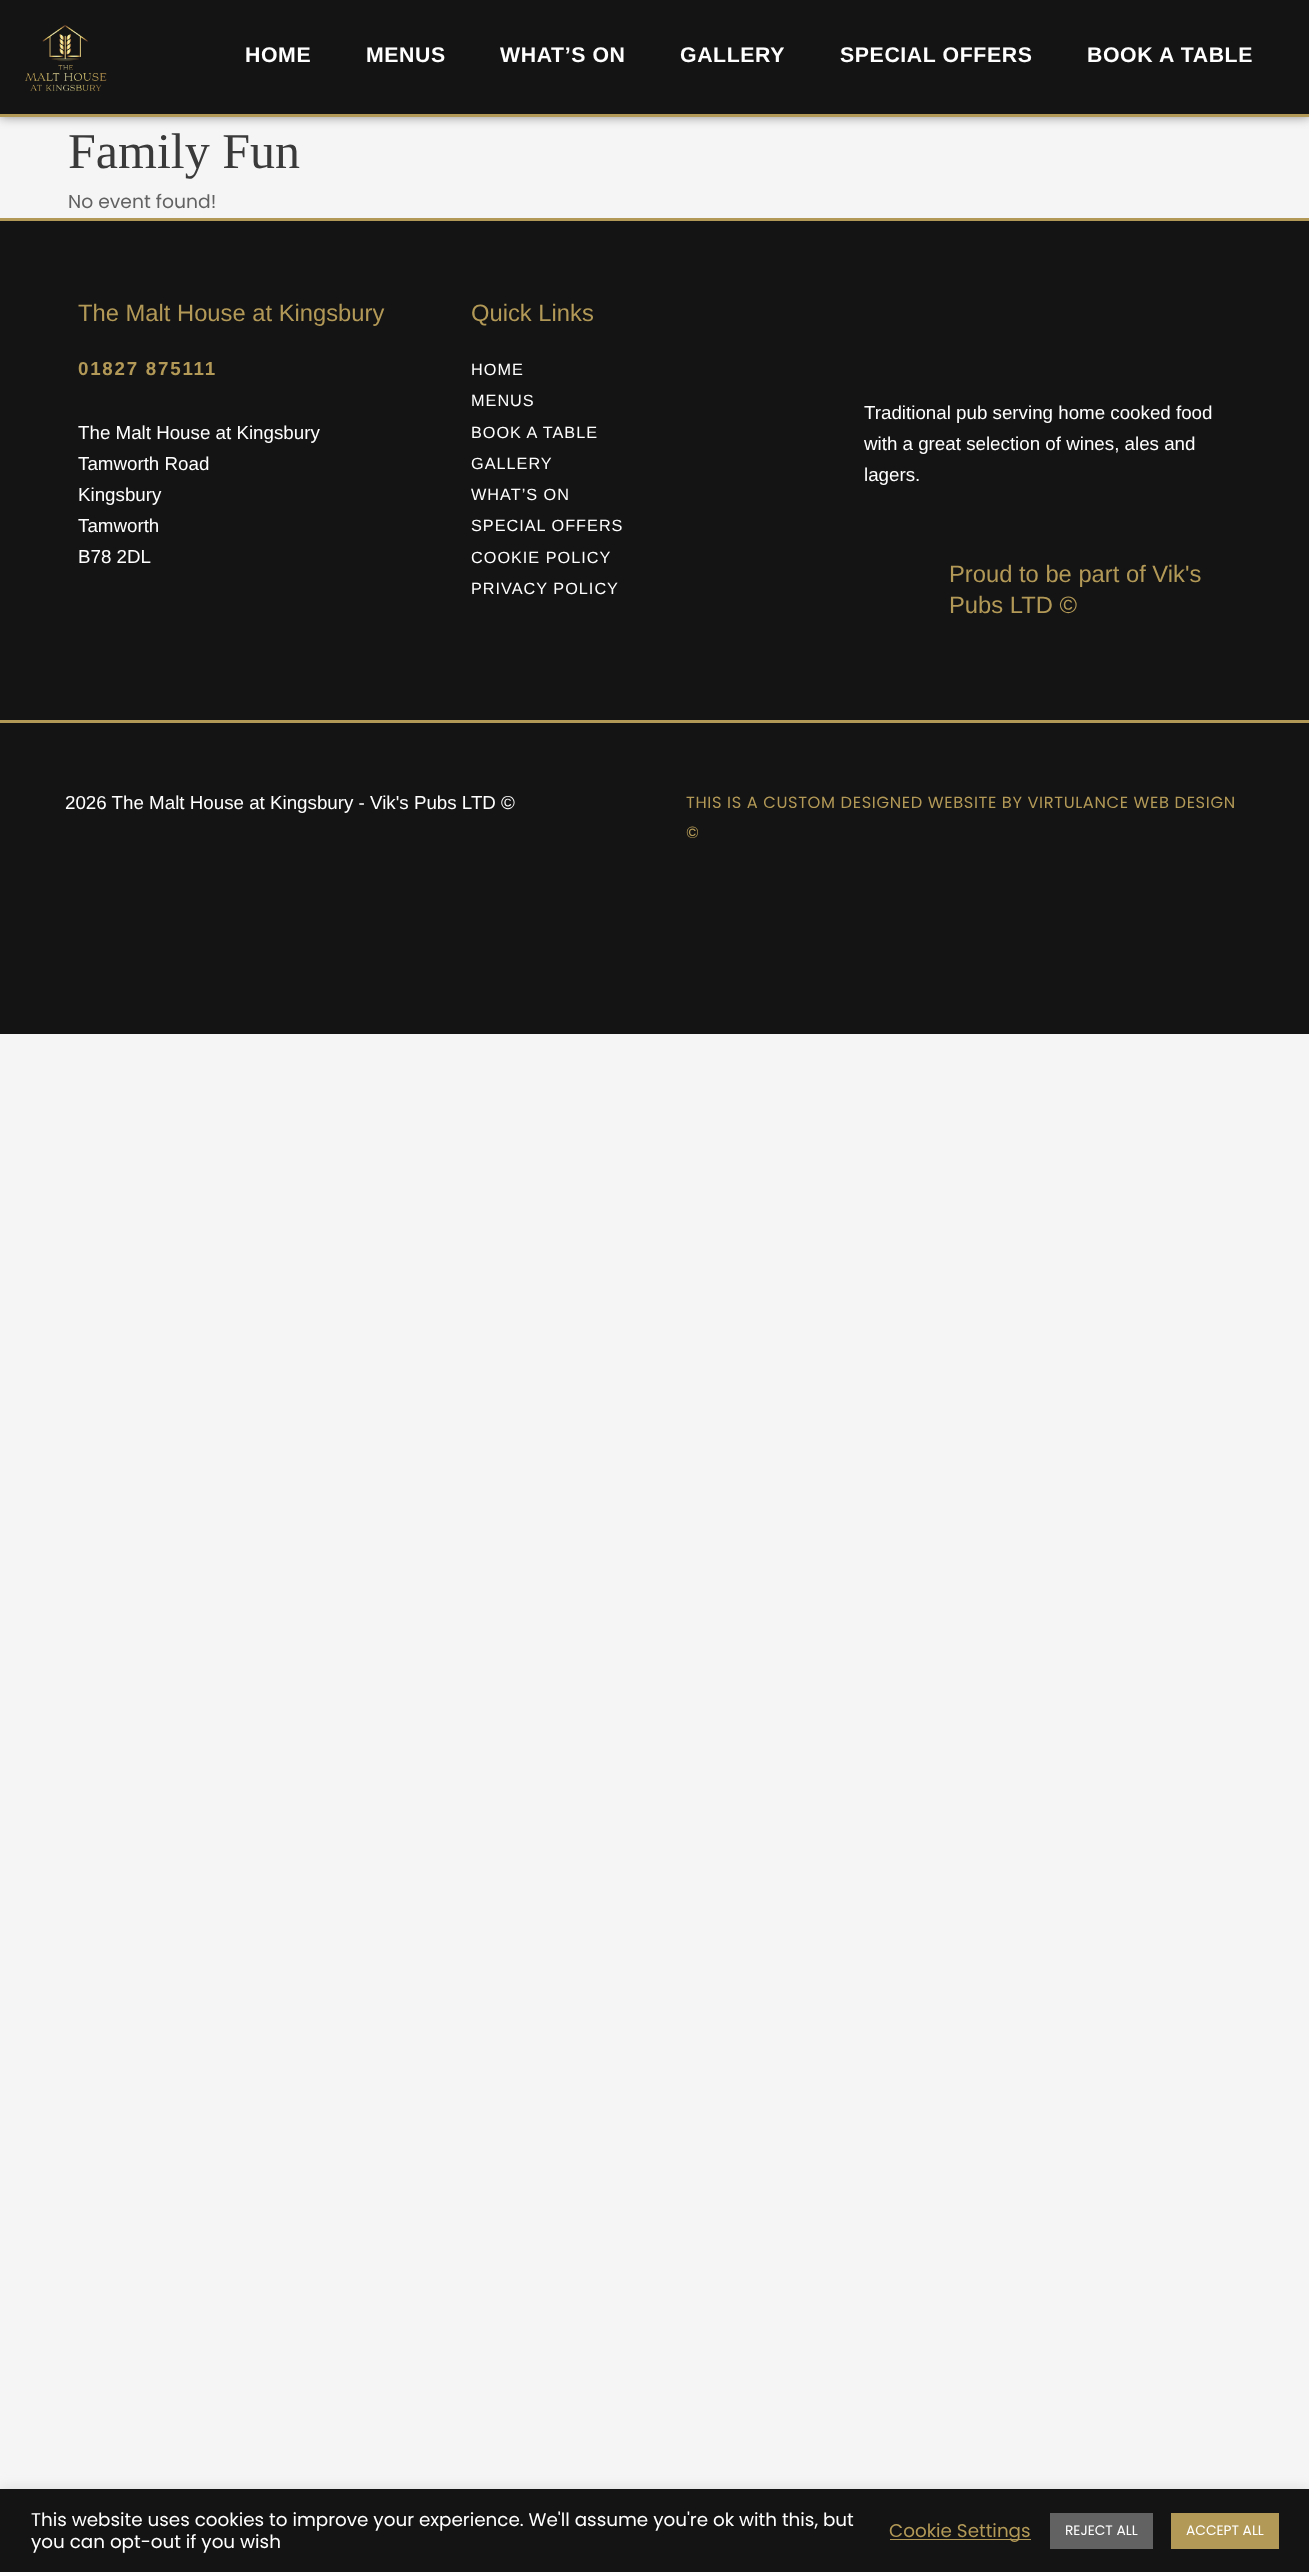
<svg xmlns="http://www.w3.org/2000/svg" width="1309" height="2572">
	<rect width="100%" height="100%" fill="#F5F5F5" />
	<rect x="0" y="0" width="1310" height="116" fill="#000000" fill-opacity="0.5" filter="blur(6px)" />
	<rect x="0" y="0" width="1309" height="114" fill="#141414" />
	<rect x="0" y="114" width="1309" height="3" fill="#B39957" />
	<image x="25" y="25" width="82" height="66" href="assets/img1.png" />
	<g font-family="Liberation Sans" font-size="21.25" font-weight="700" letter-spacing="0.62" fill="#FFFFFF">
		<text x="245" y="62">HOME</text>
		<text x="366" y="62">MENUS</text>
		<text x="500" y="62">WHAT’S ON</text>
		<text x="680" y="62">GALLERY</text>
		<text x="840" y="62">SPECIAL OFFERS</text>
		<text x="1087" y="62">BOOK A TABLE</text>
	</g>
	<text x="68" y="168" font-family="Liberation Serif" font-size="50" fill="#3A3A3A">Family Fun</text>
	<text x="68" y="208" font-family="Poppins" font-size="18.75" fill="#626262">No event found!</text>
	<rect x="0" y="221" width="1309" height="499" fill="#141414" />
	<rect x="0" y="218" width="1309" height="3" fill="#B39957" />
	<text x="78" y="321" font-family="Liberation Sans" font-size="23.75" fill="#B39957">The Malt House at Kingsbury</text>
	<text x="78" y="375" font-family="Liberation Sans" font-size="18.75" font-weight="700" letter-spacing="1.75" fill="#B39957">01827 875111</text>
	<g font-family="Liberation Sans" font-size="18.75" fill="#FFFFFF">
		<text x="78" y="439">The Malt House at Kingsbury</text>
		<text x="78" y="470">Tamworth Road</text>
		<text x="78" y="501">Kingsbury</text>
		<text x="78" y="532">Tamworth</text>
		<text x="78" y="563">B78 2DL</text>
	</g>
	<text x="471" y="321" font-family="Liberation Sans" font-size="23.75" fill="#B39957">Quick Links</text>
	<g font-family="Liberation Sans" font-size="16.25" letter-spacing="1" fill="#FFFFFF">
		<text x="471" y="375">HOME</text>
		<text x="471" y="406">MENUS</text>
		<text x="471" y="438">BOOK A TABLE</text>
		<text x="471" y="469">GALLERY</text>
		<text x="471" y="500">WHAT’S ON</text>
		<text x="471" y="531">SPECIAL OFFERS</text>
		<text x="471" y="563">COOKIE POLICY</text>
		<text x="471" y="594">PRIVACY POLICY</text>
	</g>
	<g font-family="Liberation Sans" font-size="18.75" fill="#FFFFFF">
		<text x="864" y="419">Traditional pub serving home cooked food</text>
		<text x="864" y="450">with a great selection of wines, ales and</text>
		<text x="864" y="481">lagers.</text>
	</g>
	<g font-family="Liberation Sans" font-size="23.75" fill="#B39957">
		<text x="949" y="582">Proud to be part of Vik's</text>
		<text x="949" y="613">Pubs LTD ©</text>
	</g>
	<rect x="0" y="723" width="1309" height="311" fill="#141414" />
	<rect x="0" y="720" width="1309" height="3" fill="#B39957" />
	<text x="65" y="809" font-family="Liberation Sans" font-size="18.75" fill="#FFFFFF">2026 The Malt House at Kingsbury - Vik's Pubs LTD ©</text>
	<g font-family="Poppins" font-size="16.25" letter-spacing="0.62" fill="#B39957">
		<text x="686" y="808">THIS IS A CUSTOM DESIGNED WEBSITE BY VIRTULANCE WEB DESIGN</text>
		<text x="686" y="838">©</text>
	</g>
	<rect x="0" y="2488" width="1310" height="83" fill="#ACABAB" fill-opacity="0.3" filter="blur(6px)" />
	<rect x="0" y="2489" width="1309" height="83" fill="#141414" />
	<g font-family="Poppins" font-size="18.35" fill="#FFFFFF">
		<text x="31" y="2526">This website uses cookies to improve your experience. We'll assume you're ok with this, but</text>
		<text x="31" y="2548">you can opt-out if you wish</text>
	</g>
	<rect x="890" y="2539" width="141" height="1" fill="#B39957" />
	<text x="889" y="2537" font-family="Poppins" font-size="18.35" fill="#B39957">Cookie Settings</text>
	<rect x="1050" y="2513" width="103" height="36" fill="#636262" />
	<text x="1065" y="2535" font-family="Poppins" font-size="13.75" fill="#FFFFFF">REJECT ALL</text>
	<rect x="1171" y="2513" width="108" height="36" fill="#B39957" />
	<text x="1186" y="2535" font-family="Poppins" font-size="13.75" fill="#FFFFFF">ACCEPT ALL</text>
</svg>
